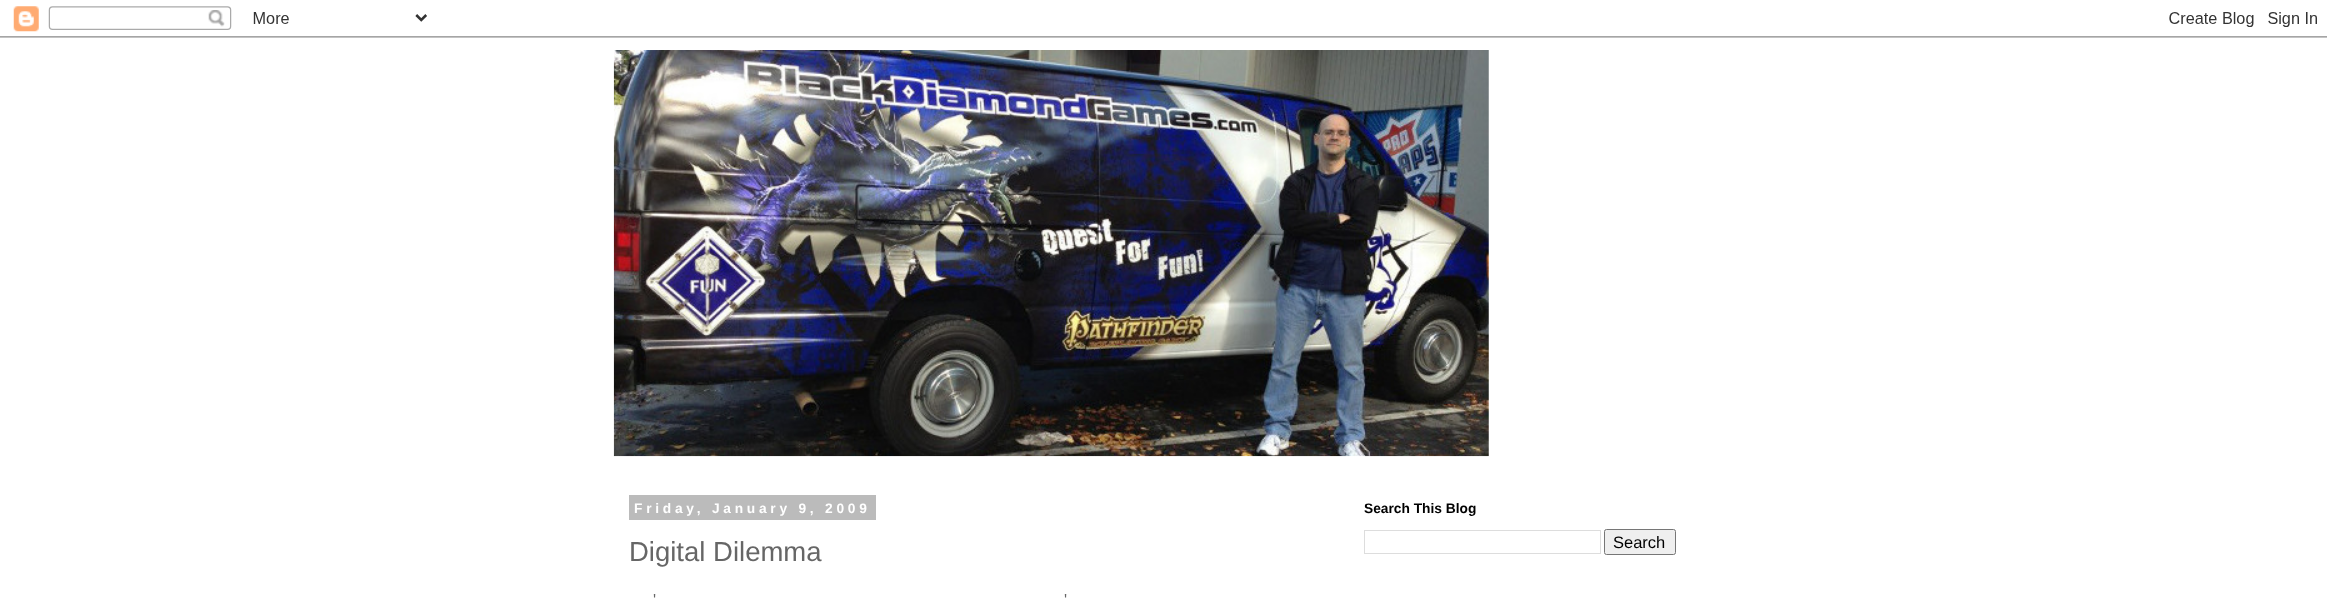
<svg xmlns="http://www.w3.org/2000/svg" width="2327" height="600">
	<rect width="100%" height="100%" fill="#FFFFFF" />
	<image x="0" y="6" width="2327" height="32" href="assets/img1.png" />
	<image x="613" y="50" width="876" height="407" href="assets/img2.png" />
	<rect x="629" y="495" width="247" height="25" fill="#BBBBBB" />
	<text x="634" y="513" font-family="Liberation Sans" font-size="13.75" font-weight="700" letter-spacing="3.75" fill="#FFFFFF">Friday, January 9, 2009</text>
	<text x="629" y="561" font-family="Liberation Sans" font-size="27.5" fill="#666666">Digital Dilemma</text>
	<g font-family="Liberation Sans" font-size="16" fill="#666666">
		<text x="653" y="605">'</text>
		<text x="1064" y="605">'</text>
	</g>
	<text x="1364" y="513" font-family="Liberation Sans" font-size="13.75" font-weight="700" fill="#000000">Search This Blog</text>
	<rect x="1364.5" y="530.5" width="236" height="23" fill="none" stroke="#DDDDDD" />
	<rect x="1604.5" y="529.5" width="71" height="25" rx="2" fill="#EFEFEF" stroke="#767676" />
	<text x="1613" y="548" font-family="Liberation Sans" font-size="16.5" fill="#000000">Search</text>
</svg>
